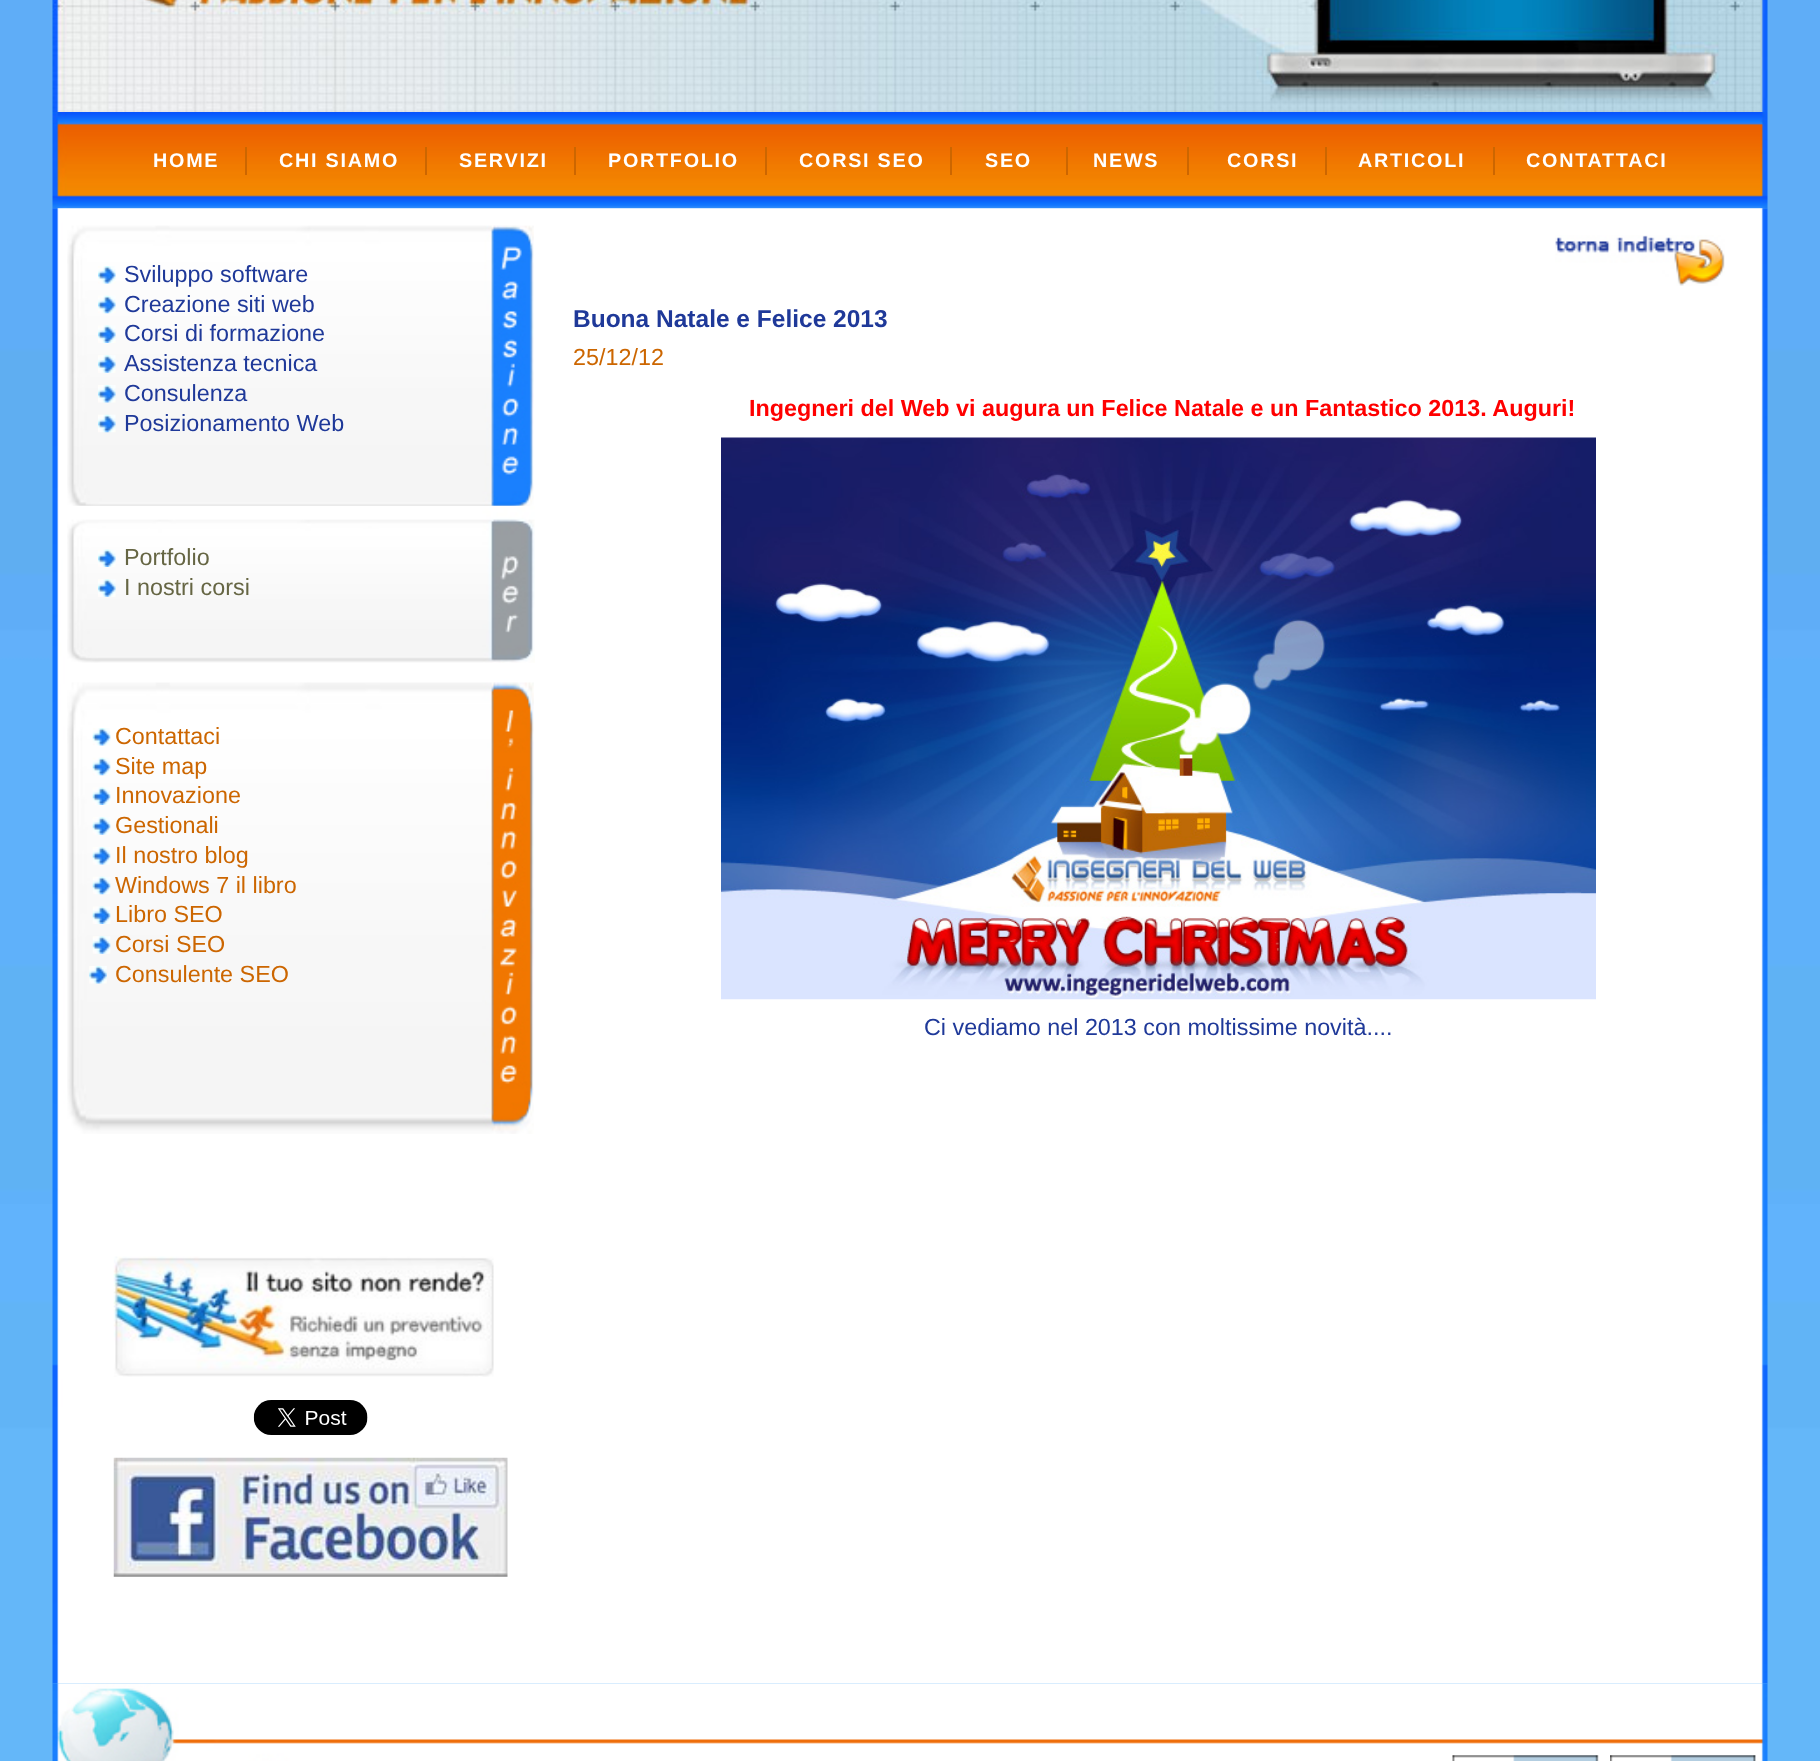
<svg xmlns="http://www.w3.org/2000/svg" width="1820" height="1761">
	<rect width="100%" height="100%" fill="#FFFFFF" />
	<image x="0" y="0" width="1820" height="1761" href="assets/img1.png" />
	<image x="52" y="0" width="1716" height="112" href="assets/img2.png" />
	<image x="52" y="112" width="1716" height="97" href="assets/img3.png" />
	<text x="153" y="167" font-family="Liberation Sans" font-size="19.75" font-weight="700" letter-spacing="1.75" fill="#FFFFFF">HOME</text>
	<rect x="245" y="147" width="2" height="28" fill="#CC6600" />
	<text x="279" y="167" font-family="Liberation Sans" font-size="19.75" font-weight="700" letter-spacing="1.75" fill="#FFFFFF">CHI SIAMO</text>
	<rect x="425" y="147" width="2" height="28" fill="#CC6600" />
	<text x="459" y="167" font-family="Liberation Sans" font-size="19.75" font-weight="700" letter-spacing="1.75" fill="#FFFFFF">SERVIZI</text>
	<rect x="574" y="147" width="2" height="28" fill="#CC6600" />
	<text x="608" y="167" font-family="Liberation Sans" font-size="19.75" font-weight="700" letter-spacing="1.75" fill="#FFFFFF">PORTFOLIO</text>
	<rect x="765" y="147" width="2" height="28" fill="#CC6600" />
	<text x="799" y="167" font-family="Liberation Sans" font-size="19.75" font-weight="700" letter-spacing="1.75" fill="#FFFFFF">CORSI SEO</text>
	<rect x="950" y="147" width="2" height="28" fill="#CC6600" />
	<text x="985" y="167" font-family="Liberation Sans" font-size="19.75" font-weight="700" letter-spacing="1.75" fill="#FFFFFF">SEO</text>
	<rect x="1066" y="147" width="2" height="28" fill="#CC6600" />
	<text x="1093" y="167" font-family="Liberation Sans" font-size="19.75" font-weight="700" letter-spacing="1.75" fill="#FFFFFF">NEWS</text>
	<rect x="1187" y="147" width="2" height="28" fill="#CC6600" />
	<text x="1227" y="167" font-family="Liberation Sans" font-size="19.75" font-weight="700" letter-spacing="1.75" fill="#FFFFFF">CORSI</text>
	<rect x="1325" y="147" width="2" height="28" fill="#CC6600" />
	<text x="1358" y="167" font-family="Liberation Sans" font-size="19.75" font-weight="700" letter-spacing="1.75" fill="#FFFFFF">ARTICOLI</text>
	<rect x="1493" y="147" width="2" height="28" fill="#CC6600" />
	<text x="1526" y="167" font-family="Liberation Sans" font-size="19.75" font-weight="700" letter-spacing="1.75" fill="#FFFFFF">CONTATTACI</text>
	<image x="52" y="208" width="1716" height="1476" href="assets/img4.png" />
	<image x="67" y="225" width="467" height="281" href="assets/img5.png" />
	<image x="98" y="266" width="18" height="18" href="assets/img6.png" />
	<text x="124" y="282" font-family="Liberation Sans" font-size="23.35" fill="#1F3999">Sviluppo software</text>
	<image x="98" y="295" width="18" height="19" href="assets/img7.png" />
	<text x="124" y="312" font-family="Liberation Sans" font-size="23.35" fill="#1F3999">Creazione siti web</text>
	<image x="98" y="325" width="18" height="18" href="assets/img8.png" />
	<text x="124" y="341" font-family="Liberation Sans" font-size="23.35" fill="#1F3999">Corsi di formazione</text>
	<image x="98" y="355" width="18" height="18" href="assets/img9.png" />
	<text x="124" y="371" font-family="Liberation Sans" font-size="23.35" fill="#1F3999">Assistenza tecnica</text>
	<image x="98" y="385" width="18" height="18" href="assets/img10.png" />
	<text x="124" y="401" font-family="Liberation Sans" font-size="23.35" fill="#1F3999">Consulenza</text>
	<image x="98" y="414" width="18" height="19" href="assets/img11.png" />
	<text x="124" y="431" font-family="Liberation Sans" font-size="23.35" fill="#1F3999">Posizionamento Web</text>
	<image x="67" y="505" width="468" height="158" href="assets/img12.png" />
	<image x="98" y="549" width="18" height="18" href="assets/img13.png" />
	<text x="124" y="565" font-family="Liberation Sans" font-size="23.35" fill="#666644">Portfolio</text>
	<image x="98" y="579" width="18" height="18" href="assets/img14.png" />
	<text x="124" y="595" font-family="Liberation Sans" font-size="23.35" fill="#666644">I nostri corsi</text>
	<image x="67" y="682" width="467" height="452" href="assets/img15.png" />
	<image x="92" y="728" width="19" height="18" href="assets/img16.png" />
	<text x="115" y="744" font-family="Liberation Sans" font-size="23.35" fill="#CC6600">Contattaci</text>
	<image x="92" y="757" width="19" height="19" href="assets/img17.png" />
	<text x="115" y="774" font-family="Liberation Sans" font-size="23.35" fill="#CC6600">Site map</text>
	<image x="92" y="787" width="19" height="18" href="assets/img18.png" />
	<text x="115" y="803" font-family="Liberation Sans" font-size="23.35" fill="#CC6600">Innovazione</text>
	<image x="92" y="817" width="19" height="18" href="assets/img19.png" />
	<text x="115" y="833" font-family="Liberation Sans" font-size="23.35" fill="#CC6600">Gestionali</text>
	<image x="92" y="847" width="19" height="18" href="assets/img20.png" />
	<text x="115" y="863" font-family="Liberation Sans" font-size="23.35" fill="#CC6600">Il nostro blog</text>
	<image x="92" y="876" width="19" height="19" href="assets/img21.png" />
	<text x="115" y="893" font-family="Liberation Sans" font-size="23.35" fill="#CC6600">Windows 7 il libro</text>
	<image x="92" y="906" width="19" height="18" href="assets/img22.png" />
	<text x="115" y="922" font-family="Liberation Sans" font-size="23.35" fill="#CC6600">Libro SEO</text>
	<image x="92" y="936" width="19" height="18" href="assets/img23.png" />
	<text x="115" y="952" font-family="Liberation Sans" font-size="23.35" fill="#CC6600">Corsi SEO</text>
	<image x="89" y="966" width="18" height="18" href="assets/img24.png" />
	<text x="115" y="982" font-family="Liberation Sans" font-size="23.35" fill="#CC6600">Consulente SEO</text>
	<image x="113" y="1256" width="381" height="121" href="assets/img25.png" />
	<image x="253" y="1400" width="115" height="35" href="assets/img26.png" />
	<image x="113" y="1457" width="395" height="120" href="assets/img27.png" />
	<image x="1555" y="235" width="170" height="51" href="assets/img28.png" />
	<text x="573" y="327" font-family="Liberation Sans" font-size="24.5" font-weight="700" fill="#1F3999">Buona Natale e Felice 2013</text>
	<text x="573" y="365" font-family="Liberation Sans" font-size="23.35" fill="#CC6600">25/12/12</text>
	<text x="749" y="416" font-family="Liberation Sans" font-size="23.35" font-weight="700" fill="#FF0000">Ingegneri del Web vi augura un Felice Natale e un Fantastico 2013. Auguri!</text>
	<image x="721" y="437" width="875" height="563" href="assets/img29.png" />
	<text x="924" y="1035" font-family="Liberation Sans" font-size="23.35" fill="#1F3999">Ci vediamo nel 2013 con moltissime novità....</text>
	<image x="52" y="1683" width="1716" height="78" href="assets/img30.png" />
	<image x="1452" y="1755" width="147" height="6" href="assets/img31.png" />
	<image x="1610" y="1755" width="146" height="6" href="assets/img32.png" />
</svg>
